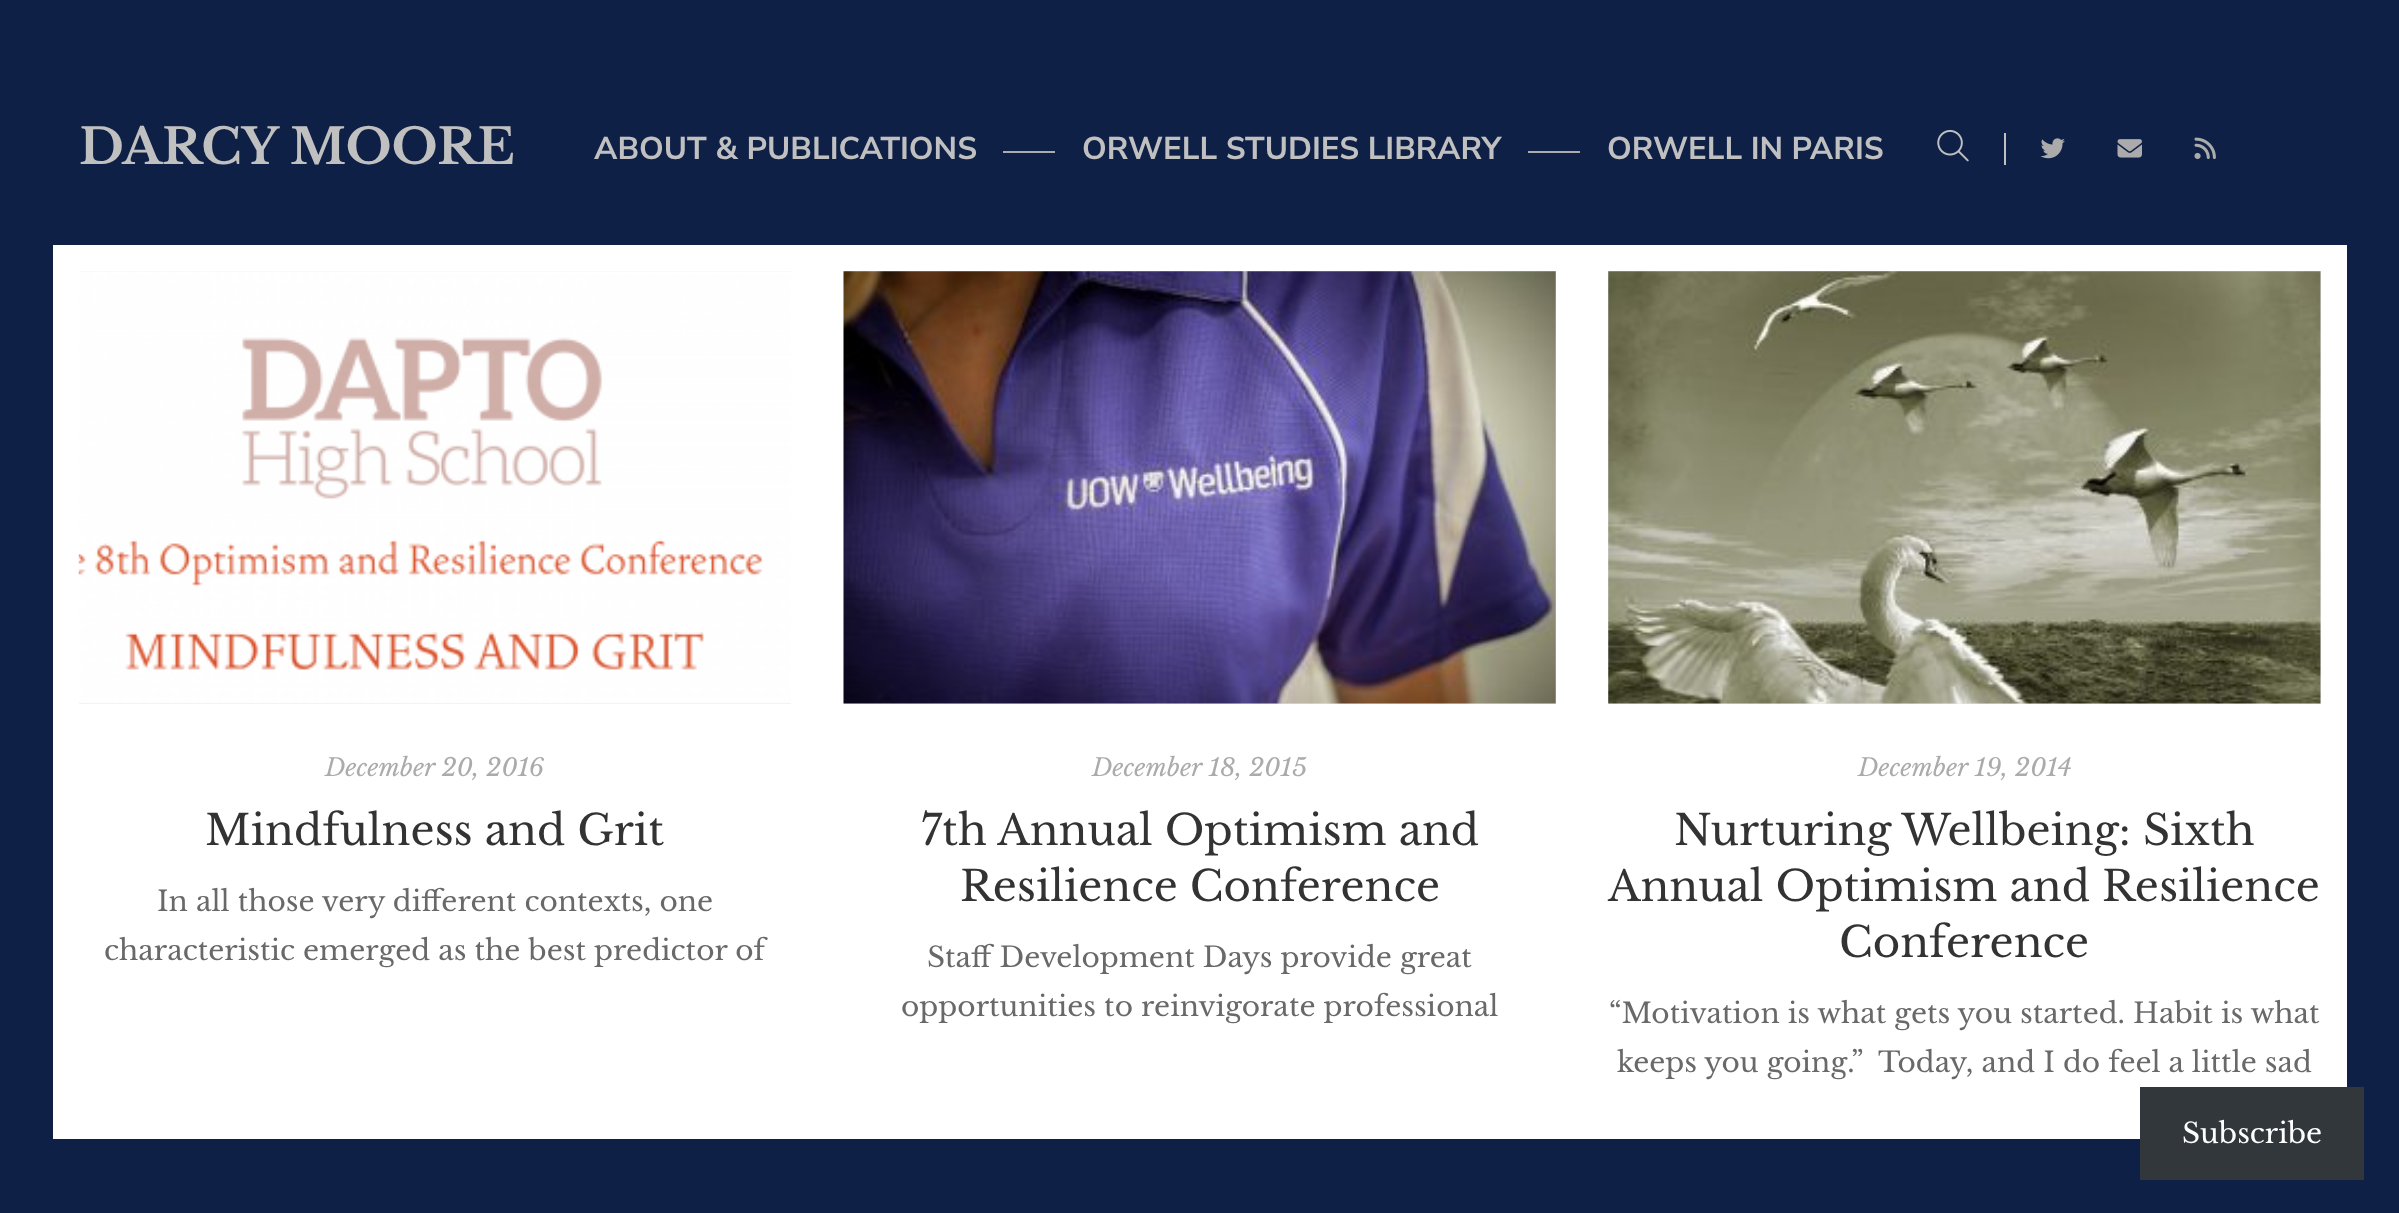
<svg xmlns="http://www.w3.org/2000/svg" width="2399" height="1213">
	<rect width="100%" height="100%" fill="#0F2047" />
	<rect x="53" y="245" width="2294" height="894" fill="#FFFFFF" />
	<text x="79" y="164" font-family="Libre Baskerville" font-size="49" font-weight="700" fill="#C0C0C0">DARCY MOORE</text>
	<text x="594" y="159" font-family="Nunito Sans" font-size="31.5" font-weight="700" fill="#C0C0C0">ABOUT &amp; PUBLICATIONS</text>
	<rect x="1003" y="151" width="52" height="2" fill="#ABABAB" />
	<text x="1082" y="159" font-family="Nunito Sans" font-size="31.5" font-weight="700" fill="#C0C0C0">ORWELL STUDIES LIBRARY</text>
	<rect x="1528" y="151" width="52" height="2" fill="#ABABAB" />
	<text x="1607" y="159" font-family="Nunito Sans" font-size="31.5" font-weight="700" fill="#C0C0C0">ORWELL IN PARIS</text>
	<image x="1937" y="129" width="32" height="33" href="assets/img1.png" />
	<rect x="2004" y="133" width="2" height="32" fill="#C0C0C0" />
	<image x="2040" y="138" width="25" height="21" href="assets/img2.png" />
	<image x="2117" y="139" width="25" height="19" href="assets/img3.png" />
	<image x="2194" y="137" width="22" height="22" href="assets/img4.png" />
	<rect x="79" y="271" width="712" height="433" fill="#E0E8EE" />
	<image x="78" y="271" width="713" height="433" href="assets/img5.png" />
	<text x="325" y="776" font-family="Libre Baskerville" font-size="24.5" font-style="italic" fill="#ABABAB">December 20, 2016</text>
	<text x="205" y="845" font-family="Libre Baskerville" font-size="42" fill="#333333">Mindfulness and Grit</text>
	<g font-family="Libre Baskerville" font-size="28" fill="#696969">
		<text x="157" y="911">In all those very different contexts, one</text>
		<text x="104" y="960">characteristic emerged as the best predictor of</text>
	</g>
	<rect x="844" y="271" width="712" height="433" fill="#E0E8EE" />
	<image x="843" y="271" width="713" height="433" href="assets/img6.png" />
	<text x="1092" y="776" font-family="Libre Baskerville" font-size="24.5" font-style="italic" fill="#ABABAB">December 18, 2015</text>
	<g font-family="Libre Baskerville" font-size="42" fill="#333333">
		<text x="921" y="845">7th Annual Optimism and</text>
		<text x="960" y="901">Resilience Conference</text>
	</g>
	<g font-family="Libre Baskerville" font-size="28" fill="#696969">
		<text x="927" y="967">Staff Development Days provide great</text>
		<text x="901" y="1016">opportunities to reinvigorate professional</text>
	</g>
	<rect x="1608" y="271" width="713" height="433" fill="#E0E8EE" />
	<image x="1608" y="271" width="713" height="433" href="assets/img7.png" />
	<text x="1858" y="776" font-family="Libre Baskerville" font-size="24.5" font-style="italic" fill="#ABABAB">December 19, 2014</text>
	<g font-family="Libre Baskerville" font-size="42" fill="#333333">
		<text x="1674" y="845">Nurturing Wellbeing: Sixth</text>
		<text x="1608" y="901">Annual Optimism and Resilience</text>
		<text x="1839" y="957">Conference</text>
	</g>
	<g font-family="Libre Baskerville" font-size="28" fill="#696969">
		<text x="1609" y="1023">“Motivation is what gets you started. Habit is what</text>
		<text x="1617" y="1072" xml:space="preserve">keeps you going.”  Today, and I do feel a little sad</text>
	</g>
	<rect x="2140" y="1087" width="224" height="93" fill="#32373C" />
	<text x="2182" y="1143" font-family="Libre Baskerville" font-size="28" fill="#FFFFFF">Subscribe</text>
</svg>
